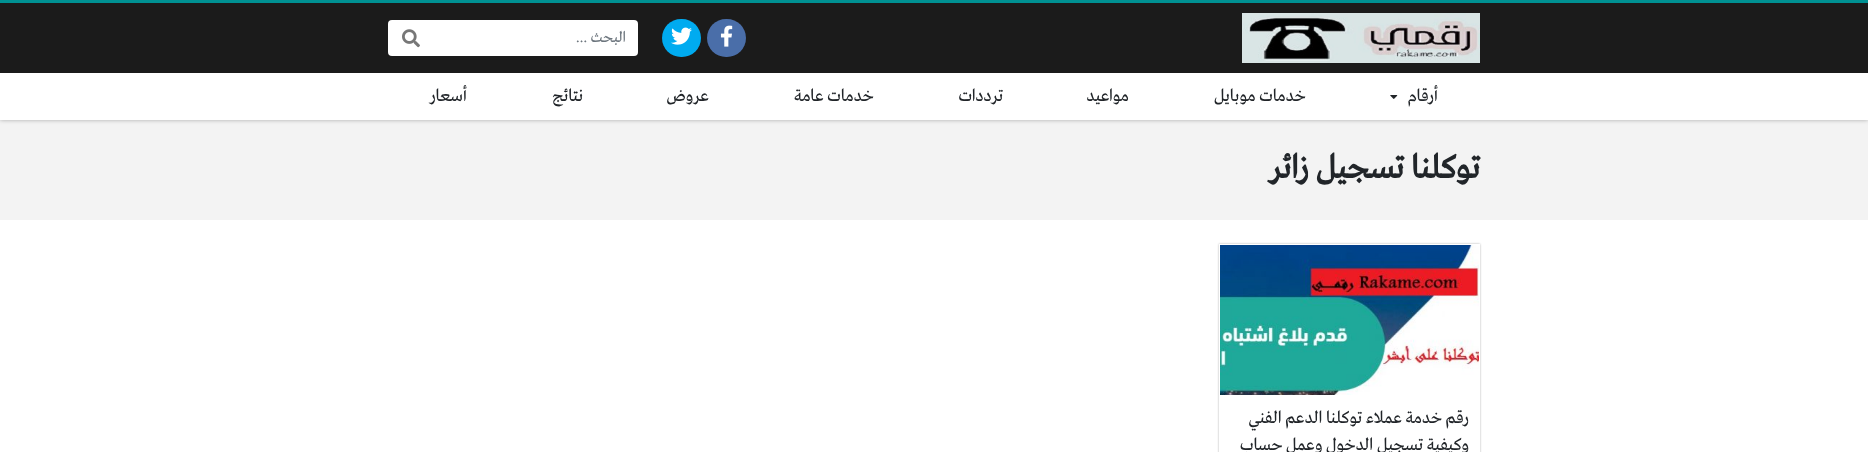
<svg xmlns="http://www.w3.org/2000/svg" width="1868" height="452">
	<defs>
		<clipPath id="clip1"><path d="M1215 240H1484V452H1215ZM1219 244H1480V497H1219Z" clip-rule="evenodd" /></clipPath>
	</defs>
	<rect width="100%" height="100%" fill="#F3F3F3" />
	<rect x="0" y="0" width="1868" height="120" fill="#000000" fill-opacity="0.3" filter="blur(2px)" />
	<rect x="0" y="0" width="1868" height="3" fill="#009193" />
	<rect x="0" y="3" width="1868" height="70" fill="#1B1B1B" />
	<image x="1242" y="13" width="238" height="50" href="assets/img1.png" />
	<rect x="707" y="19" width="39" height="38" rx="19" fill="#4A6EA9" />
	<image x="720" y="25" width="13" height="22" href="assets/img2.png" />
	<rect x="662" y="19" width="39" height="38" rx="19" fill="#00ABF0" />
	<image x="671" y="27" width="21" height="18" href="assets/img3.png" />
	<rect x="388" y="20" width="250" height="36" rx="4" fill="#FFFFFF" />
	<text x="626" y="42" font-family="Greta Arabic" font-size="16" direction="rtl" fill="#6C757D">البحث ...</text>
	<image x="402" y="29" width="18" height="19" href="assets/img4.png" />
	<rect x="0" y="73" width="1868" height="47" fill="#FFFFFF" />
	<text x="1438" y="101" font-family="Greta Arabic" font-size="18" direction="rtl" fill="#212529">أرقام</text>
	<image x="1390" y="95" width="8" height="4" href="assets/img5.png" />
	<g font-family="Greta Arabic" font-size="18" direction="rtl" fill="#212529">
		<text x="1306" y="101">خدمات موبايل</text>
		<text x="1129" y="101">مواعيد</text>
		<text x="1003" y="101">ترددات</text>
		<text x="874" y="101">خدمات عامة</text>
		<text x="709" y="101">عروض</text>
		<text x="583" y="101">نتائج</text>
		<text x="467" y="101">أسعار</text>
	</g>
	<text x="1480" y="178" font-family="Greta Arabic" font-size="34.5" font-weight="700" direction="rtl" fill="#212529">توكلنا تسجيل زائر</text>
	<rect x="0" y="220" width="1868" height="232" fill="#FFFFFF" />
	<g clip-path="url(#clip1)">
		<rect x="1219" y="244" width="261" height="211" fill="#000000" fill-opacity="0.3" filter="blur(1px)" />
	</g>
	<image x="1220" y="245" width="259" height="150" href="assets/img6.png" />
	<g font-family="Greta Arabic" font-size="18" direction="rtl" fill="#212529">
		<text x="1469" y="423">رقم خدمة عملاء توكلنا الدعم الفني</text>
		<text x="1469" y="450">وكيفية تسجيل الدخول وعمل حساب</text>
	</g>
</svg>
